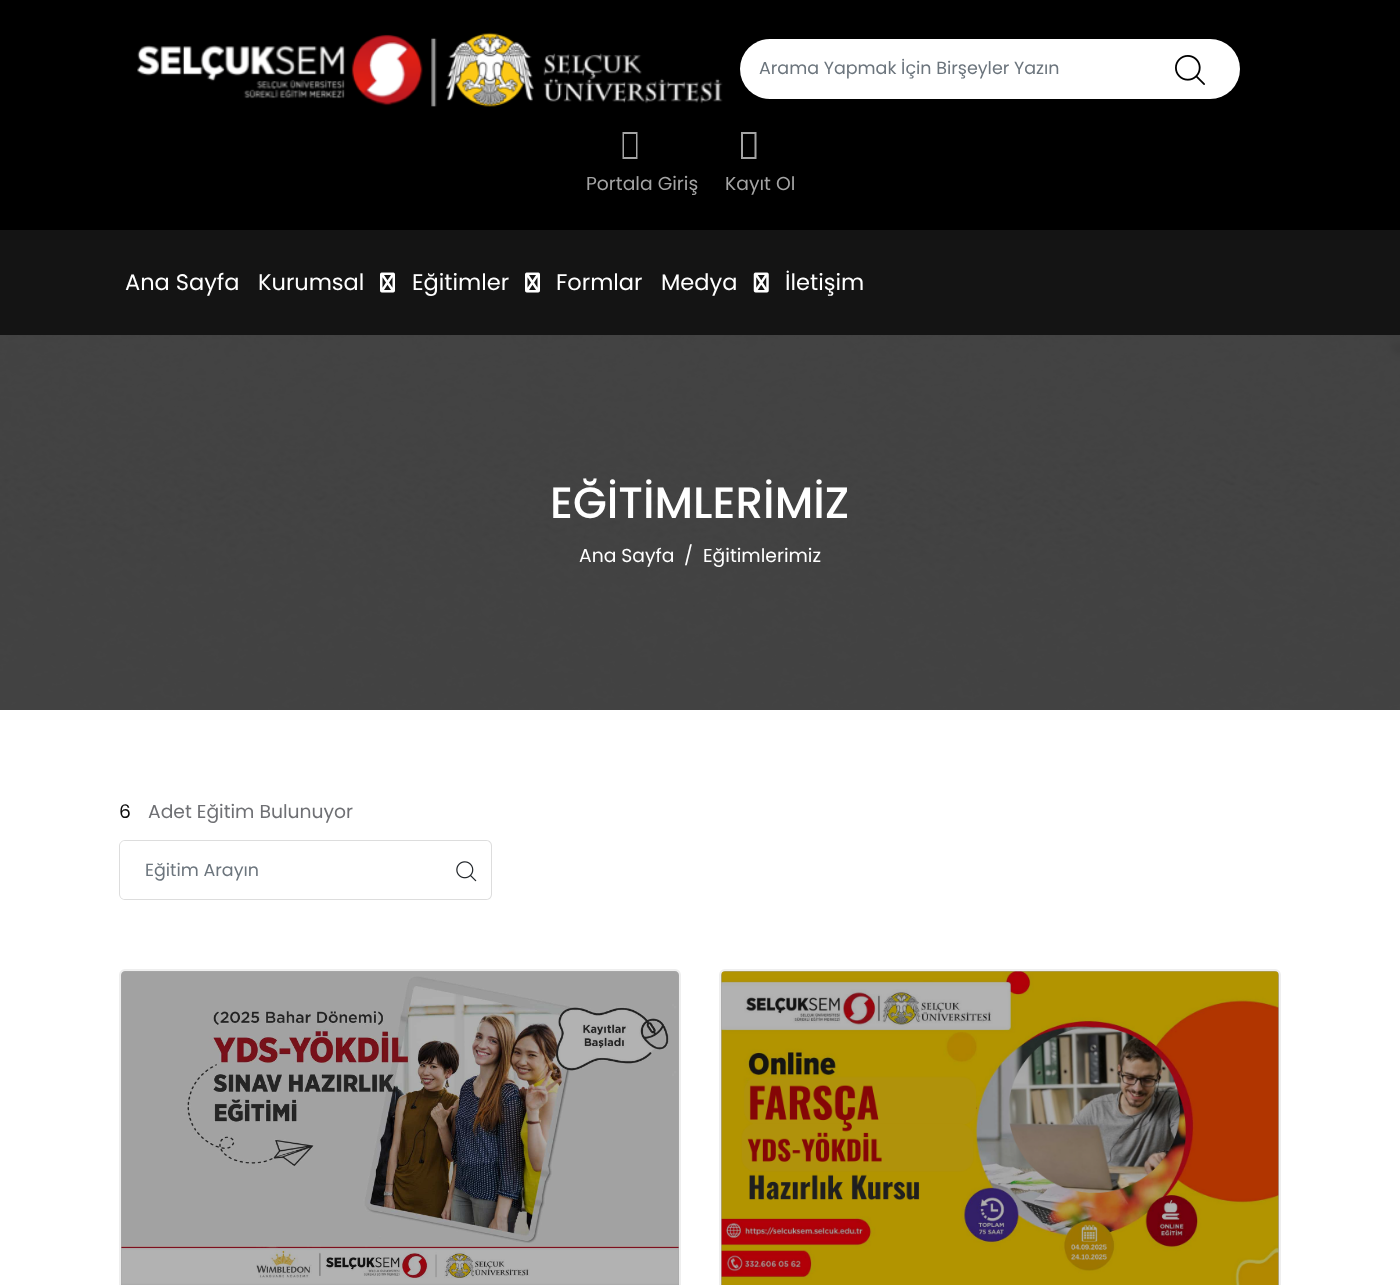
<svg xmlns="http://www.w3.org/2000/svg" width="1400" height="1285">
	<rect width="100%" height="100%" fill="#FFFFFF" />
	<rect x="0" y="0" width="1400" height="230" fill="#000000" />
	<image x="137" y="32" width="586" height="75" href="assets/img1.png" />
	<rect x="740" y="39" width="500" height="60" rx="30" fill="#FFFFFF" />
	<text x="759" y="74" font-family="Poppins" font-size="17.5" fill="#6C757D">Arama Yapmak İçin Birşeyler Yazın</text>
	<image x="1175" y="55" width="30" height="30" href="assets/img2.png" />
	<path d="M622.5 159V132H637.5V159ZM624 157H636V134H624Z" fill="#A4A4A4" />
	<text x="586" y="190" font-family="Poppins" font-size="18.75" fill="#A4A4A4">Portala Giriş</text>
	<path d="M741 159V132H756.5V159ZM743 157H754.5V134H743Z" fill="#A4A4A4" />
	<text x="725" y="190" font-family="Poppins" font-size="18.75" fill="#A4A4A4">Kayıt Ol</text>
	<rect x="0" y="230" width="1400" height="105" fill="#141414" />
	<g font-family="Poppins" font-size="22.5" fill="#FFFFFF">
		<text x="125" y="290">Ana Sayfa</text>
		<text x="258" y="290">Kurumsal</text>
	</g>
	<image x="380" y="272" width="15" height="21" href="assets/img3.png" />
	<text x="412" y="290" font-family="Poppins" font-size="22.5" fill="#FFFFFF">Eğitimler</text>
	<image x="525" y="272" width="15" height="21" href="assets/img3.png" />
	<g font-family="Poppins" font-size="22.5" fill="#FFFFFF">
		<text x="556" y="290">Formlar</text>
		<text x="661" y="290">Medya</text>
	</g>
	<image x="753" y="272" width="16" height="21" href="assets/img4.png" />
	<text x="785" y="290" font-family="Poppins" font-size="22.5" fill="#FFFFFF">İletişim</text>
	<image x="0" y="335" width="1400" height="375" href="assets/img5.png" />
	<text x="550" y="518" font-family="Poppins" font-size="43.75" font-weight="500" fill="#FFFFFF">EĞİTİMLERİMİZ</text>
	<g font-family="Poppins" font-size="18.75" fill="#FFFFFF">
		<text x="579" y="562">Ana Sayfa</text>
		<text x="684" y="562">/</text>
		<text x="703" y="562">Eğitimlerimiz</text>
	</g>
	<text x="119" y="818" font-family="Poppins" font-size="18.75" fill="#0A0A0A">6</text>
	<text x="148" y="818" font-family="Poppins" font-size="18.75" fill="#6F7074">Adet Eğitim Bulunuyor</text>
	<path d="M125 840H441V900H125C122 900 119 897 119 894V846C119 843 122 840 125 840ZM125 841H441V899H125C122 899 120 897 120 894V846C120 843 122 841 125 841Z" fill="#DDDDDD" fill-rule="evenodd" />
	<text x="145" y="876" font-family="Poppins" font-size="17.5" fill="#6C757D">Eğitim Arayın</text>
	<path d="M441 840H486C490 840 492 843 492 846V894C492 897 490 900 486 900H441ZM441 841H486C489 841 491 843 491 846V894C491 897 489 899 486 899H441Z" fill="#DDDDDD" fill-rule="evenodd" />
	<image x="456" y="861" width="21" height="21" href="assets/img6.png" />
	<rect x="120.5" y="970.5" width="559" height="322" rx="4.5" fill="none" stroke="#EEEEEE" stroke-width="3" />
	<image x="121" y="972" width="558" height="313" href="assets/img7.png" />
	<path d="M125 971H675C677 971 679 973 679 975V1285H121V975C121 973 123 971 125 971Z" fill="#000000" fill-opacity="0.3" />
	<rect x="720.5" y="970.5" width="559" height="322" rx="4.5" fill="none" stroke="#EEEEEE" stroke-width="3" />
	<image x="721" y="971" width="558" height="314" href="assets/img8.png" />
	<path d="M725 971H1275C1277 971 1279 973 1279 975V1285H721V975C721 973 723 971 725 971Z" fill="#000000" fill-opacity="0.3" />
</svg>
